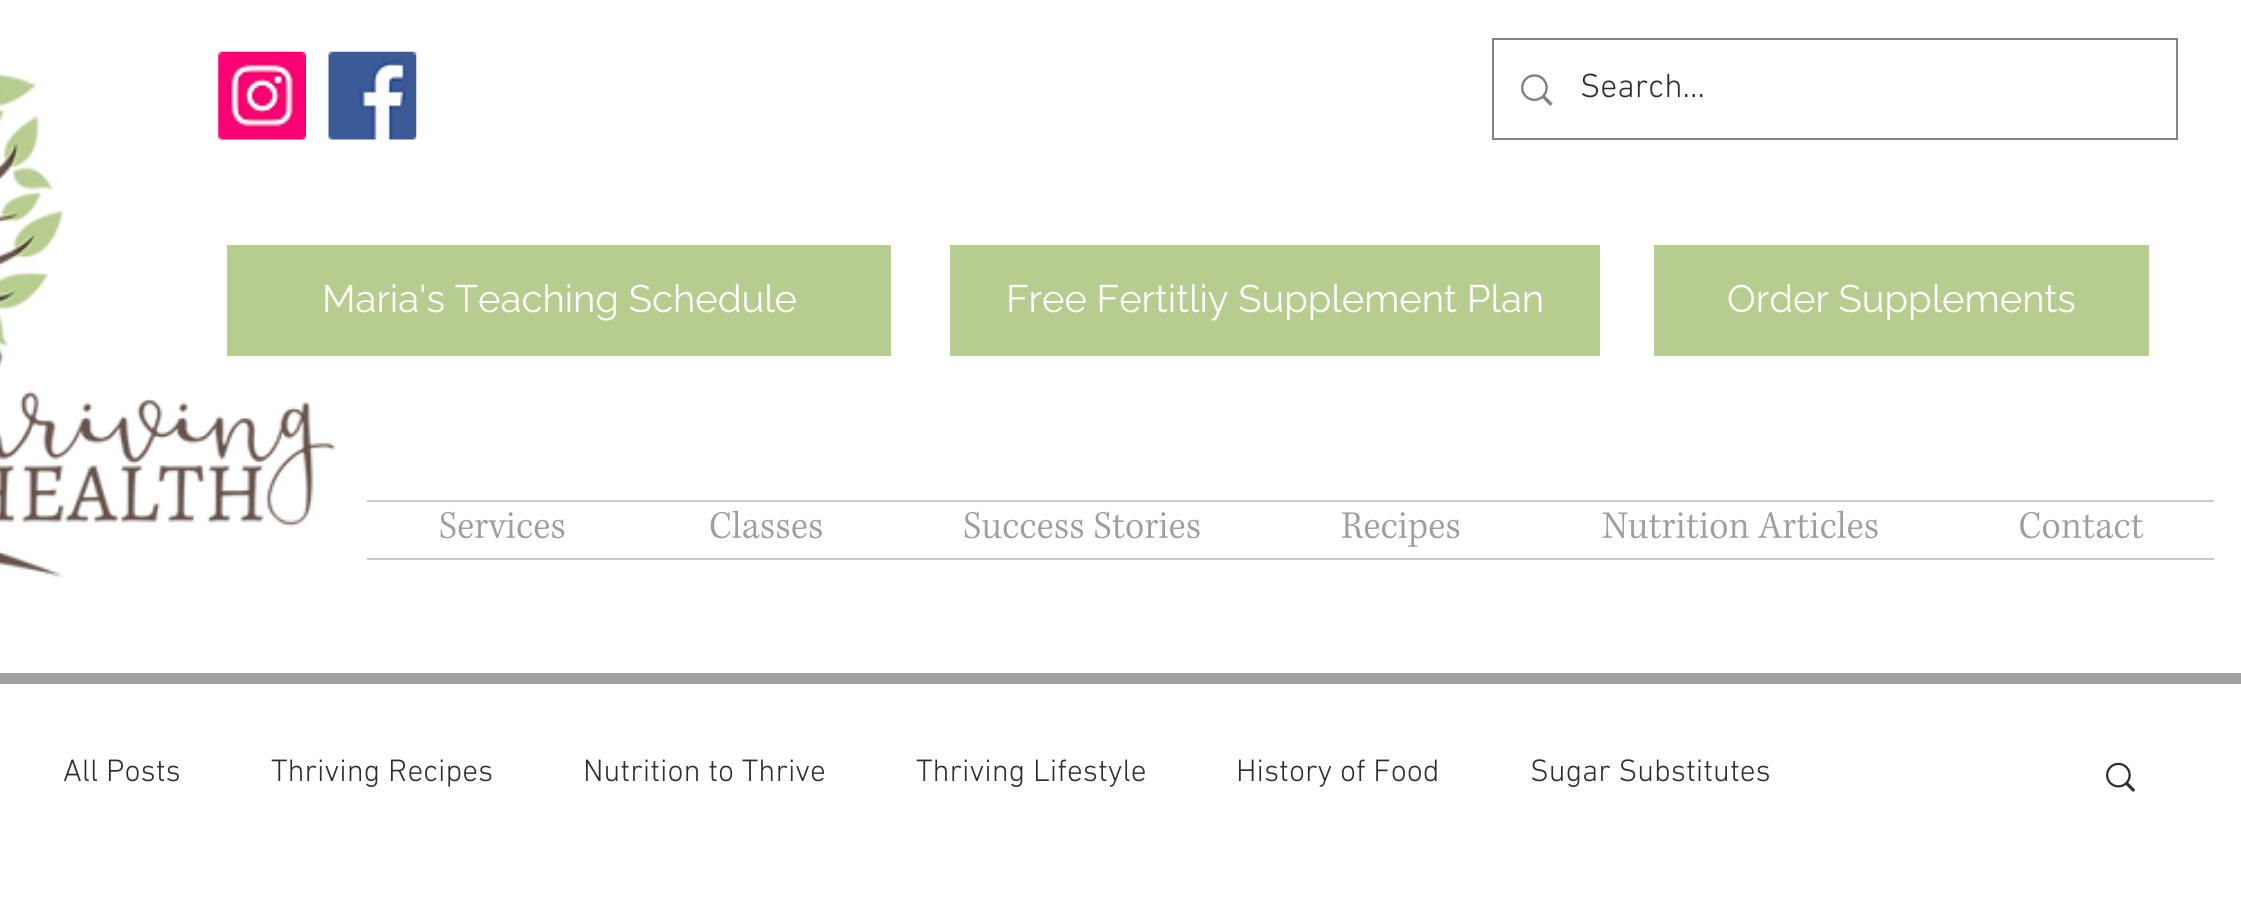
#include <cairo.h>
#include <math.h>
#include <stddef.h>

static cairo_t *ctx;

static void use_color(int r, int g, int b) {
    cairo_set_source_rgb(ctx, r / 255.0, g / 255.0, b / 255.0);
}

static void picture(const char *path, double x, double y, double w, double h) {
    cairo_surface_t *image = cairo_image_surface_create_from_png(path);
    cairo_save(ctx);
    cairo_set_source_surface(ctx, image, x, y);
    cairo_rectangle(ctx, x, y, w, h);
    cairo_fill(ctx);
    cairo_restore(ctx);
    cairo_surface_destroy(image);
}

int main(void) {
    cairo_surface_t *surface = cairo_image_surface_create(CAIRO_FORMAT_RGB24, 2241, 900);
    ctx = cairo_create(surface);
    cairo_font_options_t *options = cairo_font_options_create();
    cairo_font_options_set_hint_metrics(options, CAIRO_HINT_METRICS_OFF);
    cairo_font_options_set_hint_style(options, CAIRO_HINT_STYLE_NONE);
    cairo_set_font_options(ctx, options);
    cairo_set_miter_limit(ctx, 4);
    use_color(255, 255, 255);
    cairo_paint(ctx);
    picture("img3.png", 0, 73, 336, 505);
    picture("img1.png", 218, 51, 88, 89);
    picture("img2.png", 328, 51, 89, 89);
    cairo_rectangle(ctx, 1493, 39, 684, 100);
    use_color(130, 130, 130);
    cairo_stroke(ctx);
    picture("img4.png", 1521, 74, 32, 32);
    cairo_select_font_face(ctx, "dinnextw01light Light", CAIRO_FONT_SLANT_NORMAL, CAIRO_FONT_WEIGHT_NORMAL);
    cairo_set_font_size(ctx, 34);
    use_color(47, 46, 46);
    cairo_move_to(ctx, 1580, 97);
    cairo_show_text(ctx, "Search...");
    use_color(182, 205, 143);
    cairo_rectangle(ctx, 227, 245, 664, 111);
    cairo_fill(ctx);
    cairo_select_font_face(ctx, "Raleway", CAIRO_FONT_SLANT_NORMAL, CAIRO_FONT_WEIGHT_NORMAL);
    cairo_set_font_size(ctx, 38.25);
    use_color(255, 255, 254);
    cairo_move_to(ctx, 322, 312);
    cairo_show_text(ctx, "Maria's Teaching Schedule");
    use_color(182, 205, 143);
    cairo_rectangle(ctx, 950, 245, 650, 111);
    cairo_fill(ctx);
    use_color(255, 255, 254);
    cairo_move_to(ctx, 1006, 312);
    cairo_show_text(ctx, "Free Fertitliy Supplement Plan");
    use_color(182, 205, 143);
    cairo_rectangle(ctx, 1654, 245, 495, 111);
    cairo_fill(ctx);
    use_color(255, 255, 254);
    cairo_move_to(ctx, 1727, 312);
    cairo_show_text(ctx, "Order Supplements");
    use_color(202, 202, 202);
    cairo_rectangle(ctx, 367, 500, 1847, 2);
    cairo_fill(ctx);
    cairo_rectangle(ctx, 367, 558, 1847, 2);
    cairo_fill(ctx);
    picture("img5.png", 440, 511, 125, 28);
    picture("img6.png", 710, 510, 112, 29);
    picture("img7.png", 964, 511, 236, 28);
    picture("img8.png", 1342, 512, 118, 35);
    picture("img9.png", 1602, 510, 276, 29);
    picture("img10.png", 2020, 511, 124, 28);
    use_color(160, 160, 159);
    cairo_rectangle(ctx, 0, 673, 2241, 11);
    cairo_fill(ctx);
    cairo_select_font_face(ctx, "dinnextw01light Light", CAIRO_FONT_SLANT_NORMAL, CAIRO_FONT_WEIGHT_NORMAL);
    cairo_set_font_size(ctx, 31.5);
    use_color(47, 46, 46);
    cairo_move_to(ctx, 63, 781);
    cairo_show_text(ctx, "All Posts");
    cairo_move_to(ctx, 271, 781);
    cairo_show_text(ctx, "Thriving Recipes");
    cairo_move_to(ctx, 583, 781);
    cairo_show_text(ctx, "Nutrition to Thrive");
    cairo_move_to(ctx, 916, 781);
    cairo_show_text(ctx, "Thriving Lifestyle");
    cairo_move_to(ctx, 1236, 781);
    cairo_show_text(ctx, "History of Food");
    cairo_move_to(ctx, 1530, 781);
    cairo_show_text(ctx, "Sugar Substitutes");
    picture("img11.png", 2106, 762, 29, 30);
    cairo_surface_write_to_png(surface, "result.png");
    cairo_font_options_destroy(options);
    cairo_destroy(ctx);
    cairo_surface_destroy(surface);
    return 0;
}
